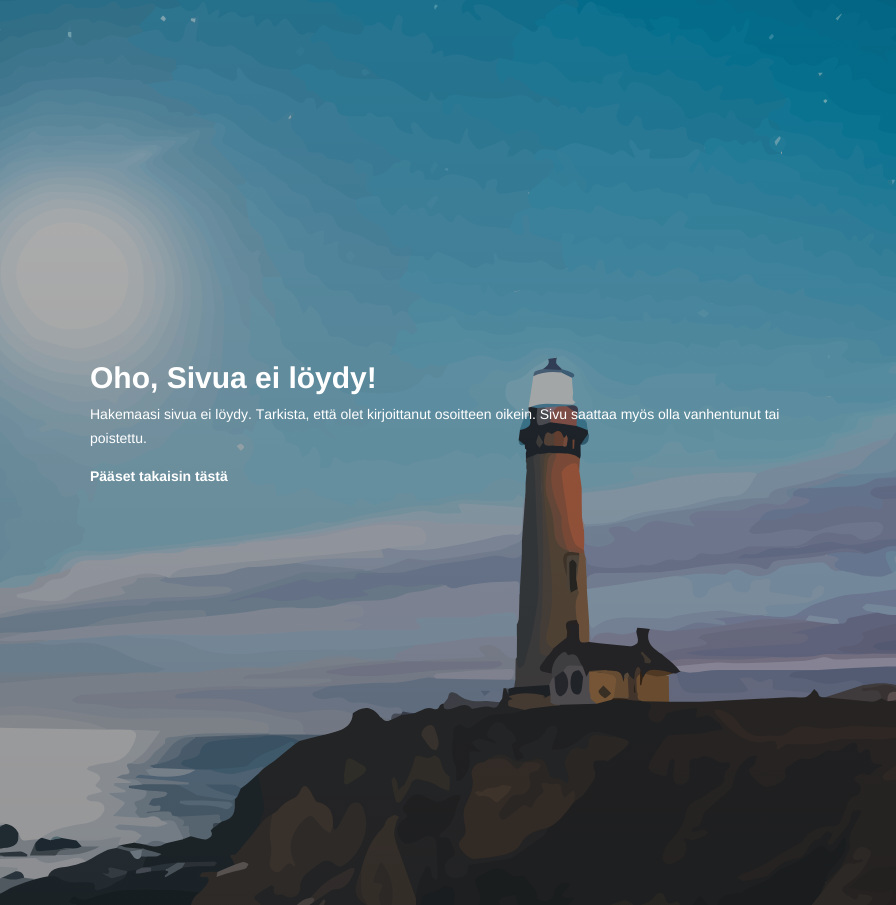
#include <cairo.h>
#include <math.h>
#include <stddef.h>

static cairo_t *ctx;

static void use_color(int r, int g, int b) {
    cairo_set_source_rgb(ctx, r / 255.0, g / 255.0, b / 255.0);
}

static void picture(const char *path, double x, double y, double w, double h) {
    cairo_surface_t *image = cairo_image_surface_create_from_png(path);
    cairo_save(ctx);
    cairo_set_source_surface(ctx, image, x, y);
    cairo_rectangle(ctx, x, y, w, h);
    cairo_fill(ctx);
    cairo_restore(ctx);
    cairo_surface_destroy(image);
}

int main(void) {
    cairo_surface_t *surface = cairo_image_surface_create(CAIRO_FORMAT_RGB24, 896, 905);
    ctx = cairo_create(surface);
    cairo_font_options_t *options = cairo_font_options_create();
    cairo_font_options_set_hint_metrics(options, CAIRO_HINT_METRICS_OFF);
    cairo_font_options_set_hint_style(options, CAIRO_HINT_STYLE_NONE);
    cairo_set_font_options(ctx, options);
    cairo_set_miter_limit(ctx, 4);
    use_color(255, 255, 255);
    cairo_paint(ctx);
    picture("img1.png", 0, 0, 896, 905);
    cairo_select_font_face(ctx, "Liberation Sans", CAIRO_FONT_SLANT_NORMAL, CAIRO_FONT_WEIGHT_BOLD);
    cairo_set_font_size(ctx, 30);
    use_color(255, 255, 255);
    cairo_move_to(ctx, 90, 388);
    cairo_show_text(ctx, "Oho, Sivua ei löydy!");
    cairo_select_font_face(ctx, "Liberation Sans", CAIRO_FONT_SLANT_NORMAL, CAIRO_FONT_WEIGHT_NORMAL);
    cairo_set_font_size(ctx, 14);
    cairo_move_to(ctx, 90, 419);
    cairo_show_text(ctx, "Hakemaasi sivua ei löydy. Tarkista, että olet kirjoittanut osoitteen oikein. Sivu saattaa myös olla vanhentunut tai");
    cairo_move_to(ctx, 90, 443);
    cairo_show_text(ctx, "poistettu.");
    cairo_select_font_face(ctx, "Liberation Sans", CAIRO_FONT_SLANT_NORMAL, CAIRO_FONT_WEIGHT_BOLD);
    cairo_move_to(ctx, 90, 481);
    cairo_show_text(ctx, "Pääset takaisin tästä");
    cairo_surface_write_to_png(surface, "result.png");
    cairo_font_options_destroy(options);
    cairo_destroy(ctx);
    cairo_surface_destroy(surface);
    return 0;
}
